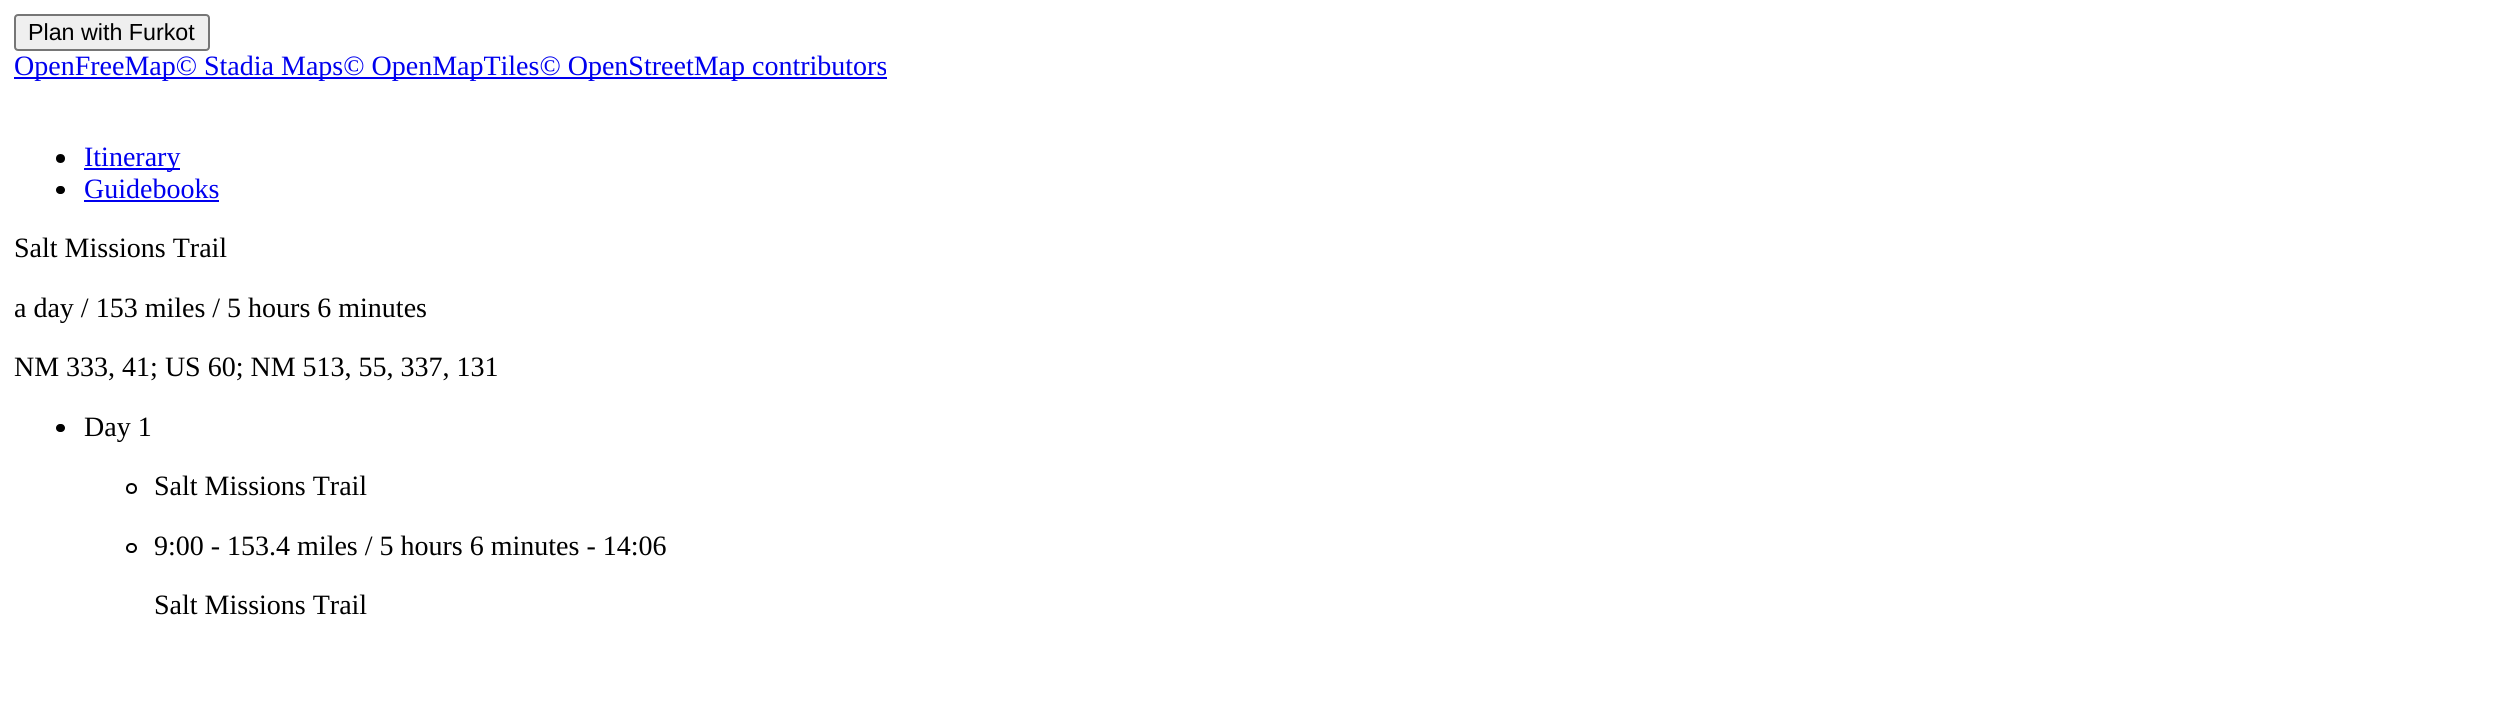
#include <cairo.h>
#include <math.h>
#include <stddef.h>

static cairo_t *ctx;

static void use_color(int r, int g, int b) {
    cairo_set_source_rgb(ctx, r / 255.0, g / 255.0, b / 255.0);
}

static void round_rect(double x, double y, double w, double h, double r) {
    cairo_new_sub_path(ctx);
    cairo_arc(ctx, x + w - r, y + h - r, r, 0, M_PI / 2);
    cairo_arc(ctx, x + r, y + h - r, r, M_PI / 2, M_PI);
    cairo_arc(ctx, x + r, y + r, r, M_PI, 1.5 * M_PI);
    cairo_arc(ctx, x + w - r, y + r, r, 1.5 * M_PI, 2 * M_PI);
    cairo_close_path(ctx);
}

int main(void) {
    cairo_surface_t *surface = cairo_image_surface_create(CAIRO_FORMAT_RGB24, 2519, 717);
    ctx = cairo_create(surface);
    cairo_font_options_t *options = cairo_font_options_create();
    cairo_font_options_set_hint_metrics(options, CAIRO_HINT_METRICS_OFF);
    cairo_font_options_set_hint_style(options, CAIRO_HINT_STYLE_NONE);
    cairo_set_font_options(ctx, options);
    cairo_set_miter_limit(ctx, 4);
    use_color(255, 255, 255);
    cairo_paint(ctx);
    use_color(239, 239, 239);
    round_rect(15, 15, 194, 35, 3);
    cairo_fill_preserve(ctx);
    use_color(118, 118, 118);
    cairo_stroke(ctx);
    cairo_select_font_face(ctx, "Liberation Sans", CAIRO_FONT_SLANT_NORMAL, CAIRO_FONT_WEIGHT_NORMAL);
    cairo_set_font_size(ctx, 23.25);
    use_color(0, 0, 0);
    cairo_move_to(ctx, 28, 40);
    cairo_show_text(ctx, "Plan with Furkot");
    use_color(0, 0, 238);
    cairo_rectangle(ctx, 14, 77, 873, 2);
    cairo_fill(ctx);
    cairo_select_font_face(ctx, "Liberation Serif", CAIRO_FONT_SLANT_NORMAL, CAIRO_FONT_WEIGHT_NORMAL);
    cairo_set_font_size(ctx, 28);
    cairo_move_to(ctx, 14, 75);
    cairo_show_text(ctx, "OpenFreeMap© Stadia Maps© OpenMapTiles© OpenStreetMap contributors");
    use_color(0, 0, 0);
    cairo_new_path(ctx);
    cairo_arc(ctx, 60.5, 158.5, 4.5, 0, 2 * M_PI);
    cairo_fill(ctx);
    use_color(0, 0, 238);
    cairo_rectangle(ctx, 84, 168, 96, 2);
    cairo_fill(ctx);
    cairo_move_to(ctx, 84, 166);
    cairo_show_text(ctx, "Itinerary");
    use_color(0, 0, 0);
    round_rect(56, 186, 9, 8, 4);
    cairo_fill(ctx);
    use_color(0, 0, 238);
    cairo_move_to(ctx, 84, 198);
    cairo_show_text(ctx, "Guidebooks");
    cairo_rectangle(ctx, 84, 200, 135, 2);
    cairo_fill(ctx);
    use_color(0, 0, 0);
    cairo_move_to(ctx, 14, 257);
    cairo_show_text(ctx, "Salt Missions Trail");
    cairo_move_to(ctx, 14, 317);
    cairo_show_text(ctx, "a day / 153 miles / 5 hours 6 minutes");
    cairo_move_to(ctx, 14, 376);
    cairo_show_text(ctx, "NM 333, 41; US 60; NM 513, 55, 337, 131");
    round_rect(56, 424, 9, 8, 4);
    cairo_fill(ctx);
    cairo_move_to(ctx, 84, 436);
    cairo_show_text(ctx, "Day 1");
    cairo_new_path(ctx);
    cairo_arc(ctx, 131.5, 488.5, 4.5, 0, 2 * M_PI);
    cairo_stroke(ctx);
    cairo_move_to(ctx, 154, 495);
    cairo_show_text(ctx, "Salt Missions Trail");
    round_rect(127, 544, 9, 8, 4);
    cairo_stroke(ctx);
    cairo_move_to(ctx, 154, 555);
    cairo_show_text(ctx, "9:00 - 153.4 miles / 5 hours 6 minutes - 14:06");
    cairo_move_to(ctx, 154, 614);
    cairo_show_text(ctx, "Salt Missions Trail");
    cairo_surface_write_to_png(surface, "result.png");
    cairo_font_options_destroy(options);
    cairo_destroy(ctx);
    cairo_surface_destroy(surface);
    return 0;
}
